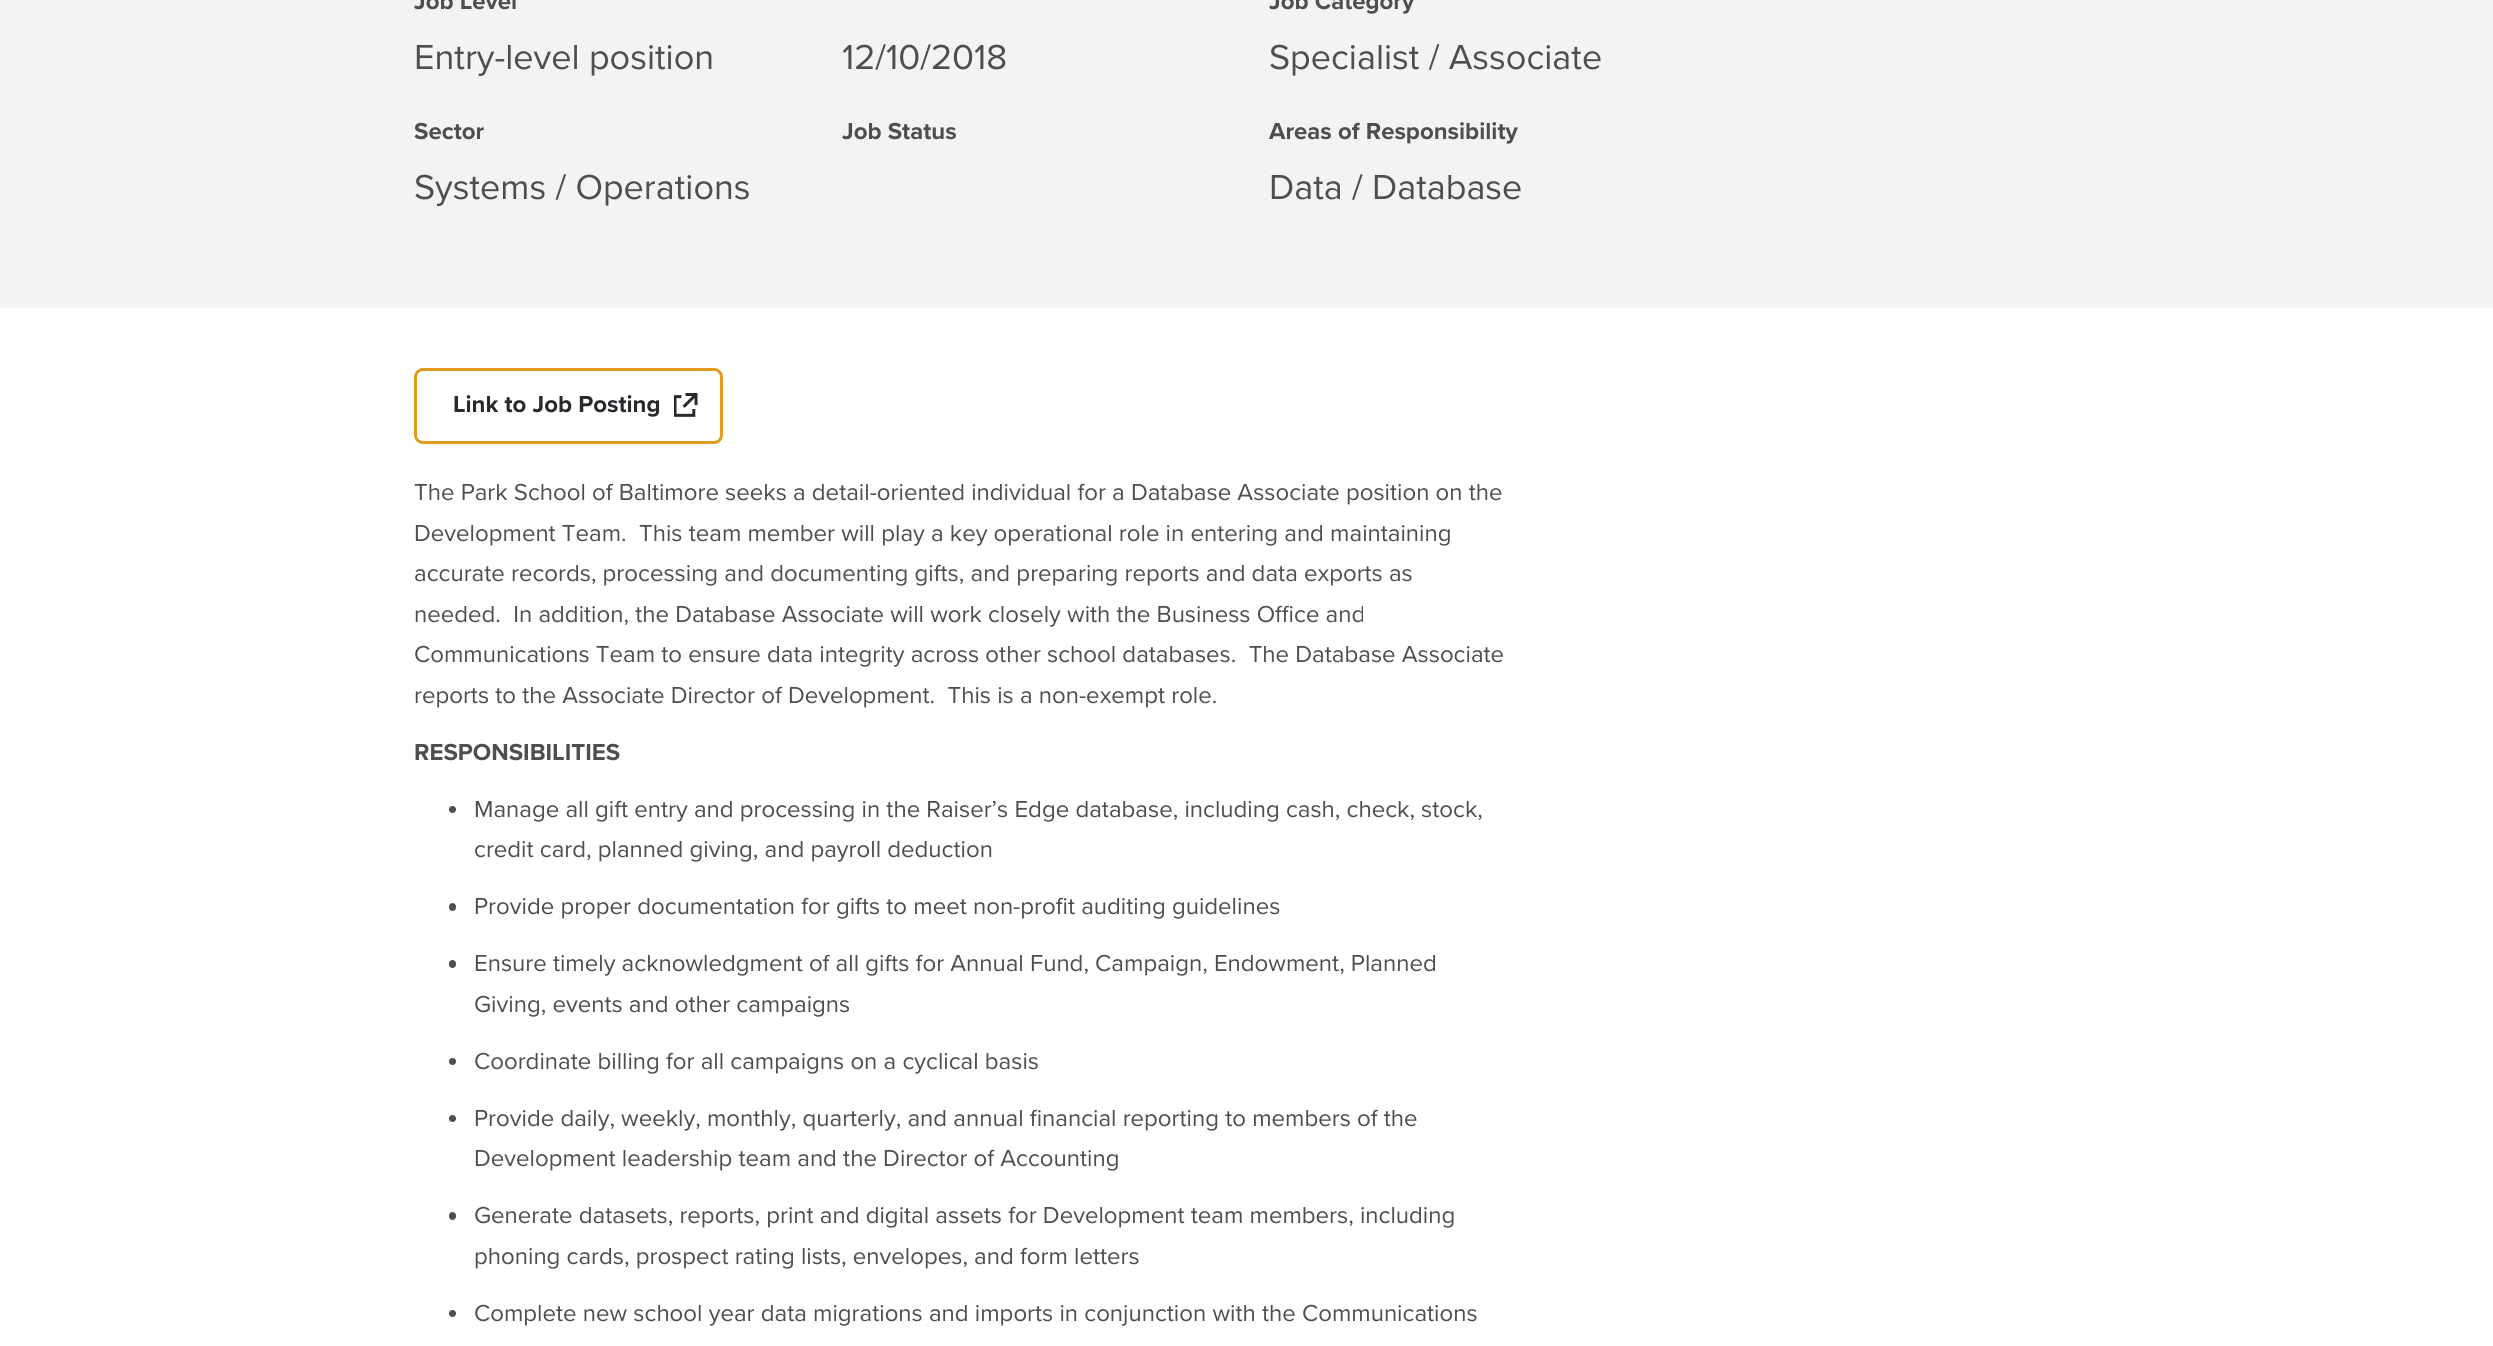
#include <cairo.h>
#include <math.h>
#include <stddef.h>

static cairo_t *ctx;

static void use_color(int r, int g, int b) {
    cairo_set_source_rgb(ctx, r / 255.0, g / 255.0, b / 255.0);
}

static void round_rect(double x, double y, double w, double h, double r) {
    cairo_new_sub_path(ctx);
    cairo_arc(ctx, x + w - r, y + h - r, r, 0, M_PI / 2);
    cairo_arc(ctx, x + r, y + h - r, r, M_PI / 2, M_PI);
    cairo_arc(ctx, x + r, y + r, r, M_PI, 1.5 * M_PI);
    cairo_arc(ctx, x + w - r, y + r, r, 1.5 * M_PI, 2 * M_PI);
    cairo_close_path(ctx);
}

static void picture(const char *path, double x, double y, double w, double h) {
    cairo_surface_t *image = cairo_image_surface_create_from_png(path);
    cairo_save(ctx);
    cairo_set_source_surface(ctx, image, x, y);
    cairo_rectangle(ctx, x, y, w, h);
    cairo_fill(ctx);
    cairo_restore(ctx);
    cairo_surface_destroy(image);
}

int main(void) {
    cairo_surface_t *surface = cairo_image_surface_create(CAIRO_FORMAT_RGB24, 2493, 1346);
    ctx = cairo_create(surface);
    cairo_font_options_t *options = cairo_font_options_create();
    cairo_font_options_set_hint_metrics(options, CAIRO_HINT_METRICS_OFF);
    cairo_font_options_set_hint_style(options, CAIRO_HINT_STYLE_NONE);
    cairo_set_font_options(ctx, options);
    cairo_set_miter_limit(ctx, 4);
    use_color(243, 243, 242);
    cairo_paint(ctx);
    cairo_select_font_face(ctx, "Proxima Nova", CAIRO_FONT_SLANT_NORMAL, CAIRO_FONT_WEIGHT_BOLD);
    cairo_set_font_size(ctx, 24);
    use_color(78, 78, 78);
    cairo_move_to(ctx, 414, 9);
    cairo_show_text(ctx, "Job Level");
    cairo_select_font_face(ctx, "Proxima Nova", CAIRO_FONT_SLANT_NORMAL, CAIRO_FONT_WEIGHT_NORMAL);
    cairo_set_font_size(ctx, 36);
    cairo_move_to(ctx, 414, 69);
    cairo_show_text(ctx, "Entry-level position");
    cairo_move_to(ctx, 842, 69);
    cairo_show_text(ctx, "12/10/2018");
    cairo_select_font_face(ctx, "Proxima Nova", CAIRO_FONT_SLANT_NORMAL, CAIRO_FONT_WEIGHT_BOLD);
    cairo_set_font_size(ctx, 24);
    cairo_move_to(ctx, 1269, 9);
    cairo_show_text(ctx, "Job Category");
    cairo_select_font_face(ctx, "Proxima Nova", CAIRO_FONT_SLANT_NORMAL, CAIRO_FONT_WEIGHT_NORMAL);
    cairo_set_font_size(ctx, 36);
    cairo_move_to(ctx, 1269, 69);
    cairo_show_text(ctx, "Specialist / Associate");
    cairo_select_font_face(ctx, "Proxima Nova", CAIRO_FONT_SLANT_NORMAL, CAIRO_FONT_WEIGHT_BOLD);
    cairo_set_font_size(ctx, 24);
    cairo_move_to(ctx, 414, 139);
    cairo_show_text(ctx, "Sector");
    cairo_select_font_face(ctx, "Proxima Nova", CAIRO_FONT_SLANT_NORMAL, CAIRO_FONT_WEIGHT_NORMAL);
    cairo_set_font_size(ctx, 36);
    cairo_move_to(ctx, 414, 199);
    cairo_show_text(ctx, "Systems / Operations");
    cairo_select_font_face(ctx, "Proxima Nova", CAIRO_FONT_SLANT_NORMAL, CAIRO_FONT_WEIGHT_BOLD);
    cairo_set_font_size(ctx, 24);
    cairo_move_to(ctx, 842, 139);
    cairo_show_text(ctx, "Job Status");
    cairo_move_to(ctx, 1269, 139);
    cairo_show_text(ctx, "Areas of Responsibility");
    cairo_select_font_face(ctx, "Proxima Nova", CAIRO_FONT_SLANT_NORMAL, CAIRO_FONT_WEIGHT_NORMAL);
    cairo_set_font_size(ctx, 36);
    cairo_move_to(ctx, 1269, 199);
    cairo_show_text(ctx, "Data / Database");
    use_color(255, 255, 255);
    cairo_rectangle(ctx, 0, 308, 2493, 1038);
    cairo_fill(ctx);
    picture("img1.png", 674, 393, 24, 24);
    round_rect(415.5, 369.5, 306, 73, 7.5);
    use_color(224, 155, 32);
    cairo_set_line_width(ctx, 3);
    cairo_stroke(ctx);
    cairo_select_font_face(ctx, "Proxima Nova", CAIRO_FONT_SLANT_NORMAL, CAIRO_FONT_WEIGHT_BOLD);
    cairo_set_font_size(ctx, 24);
    use_color(40, 41, 45);
    cairo_move_to(ctx, 453, 412);
    cairo_show_text(ctx, "Link to Job Posting");
    cairo_select_font_face(ctx, "Proxima Nova", CAIRO_FONT_SLANT_NORMAL, CAIRO_FONT_WEIGHT_NORMAL);
    use_color(78, 78, 78);
    cairo_move_to(ctx, 414, 500);
    cairo_show_text(ctx, "The Park School of Baltimore seeks a detail-oriented individual for a Database Associate position on the");
    cairo_move_to(ctx, 414, 541);
    cairo_show_text(ctx, "Development Team.  This team member will play a key operational role in entering and maintaining");
    cairo_move_to(ctx, 414, 581);
    cairo_show_text(ctx, "accurate records, processing and documenting gifts, and preparing reports and data exports as");
    cairo_move_to(ctx, 414, 622);
    cairo_show_text(ctx, "needed.  In addition, the Database Associate will work closely with the Business Office and");
    cairo_move_to(ctx, 414, 662);
    cairo_show_text(ctx, "Communications Team to ensure data integrity across other school databases.  The Database Associate");
    cairo_move_to(ctx, 414, 703);
    cairo_show_text(ctx, "reports to the Associate Director of Development.  This is a non-exempt role.");
    cairo_select_font_face(ctx, "Proxima Nova", CAIRO_FONT_SLANT_NORMAL, CAIRO_FONT_WEIGHT_BOLD);
    cairo_move_to(ctx, 414, 760);
    cairo_show_text(ctx, "RESPONSIBILITIES");
    cairo_new_path(ctx);
    cairo_arc(ctx, 452.5, 809.5, 3.5, 0, 2 * M_PI);
    cairo_fill(ctx);
    cairo_select_font_face(ctx, "Proxima Nova", CAIRO_FONT_SLANT_NORMAL, CAIRO_FONT_WEIGHT_NORMAL);
    cairo_move_to(ctx, 474, 817);
    cairo_show_text(ctx, "Manage all gift entry and processing in the Raiser’s Edge database, including cash, check, stock,");
    cairo_move_to(ctx, 474, 857);
    cairo_show_text(ctx, "credit card, planned giving, and payroll deduction");
    round_rect(449, 903, 7, 8, 3.5);
    cairo_fill(ctx);
    cairo_move_to(ctx, 474, 914);
    cairo_show_text(ctx, "Provide proper documentation for gifts to meet non-profit auditing guidelines");
    round_rect(449, 960, 7, 8, 3.5);
    cairo_fill(ctx);
    cairo_move_to(ctx, 474, 971);
    cairo_show_text(ctx, "Ensure timely acknowledgment of all gifts for Annual Fund, Campaign, Endowment, Planned");
    cairo_move_to(ctx, 474, 1012);
    cairo_show_text(ctx, "Giving, events and other campaigns");
    cairo_new_path(ctx);
    cairo_arc(ctx, 452.5, 1061.5, 3.5, 0, 2 * M_PI);
    cairo_fill(ctx);
    cairo_move_to(ctx, 474, 1069);
    cairo_show_text(ctx, "Coordinate billing for all campaigns on a cyclical basis");
    cairo_new_path(ctx);
    cairo_arc(ctx, 452.5, 1118.5, 3.5, 0, 2 * M_PI);
    cairo_fill(ctx);
    cairo_move_to(ctx, 474, 1126);
    cairo_show_text(ctx, "Provide daily, weekly, monthly, quarterly, and annual financial reporting to members of the");
    cairo_move_to(ctx, 474, 1166);
    cairo_show_text(ctx, "Development leadership team and the Director of Accounting");
    round_rect(449, 1212, 7, 8, 3.5);
    cairo_fill(ctx);
    cairo_move_to(ctx, 474, 1223);
    cairo_show_text(ctx, "Generate datasets, reports, print and digital assets for Development team members, including");
    cairo_move_to(ctx, 474, 1264);
    cairo_show_text(ctx, "phoning cards, prospect rating lists, envelopes, and form letters");
    cairo_new_path(ctx);
    cairo_arc(ctx, 452.5, 1313.5, 3.5, 0, 2 * M_PI);
    cairo_fill(ctx);
    cairo_move_to(ctx, 474, 1321);
    cairo_show_text(ctx, "Complete new school year data migrations and imports in conjunction with the Communications");
    cairo_surface_write_to_png(surface, "result.png");
    cairo_font_options_destroy(options);
    cairo_destroy(ctx);
    cairo_surface_destroy(surface);
    return 0;
}
